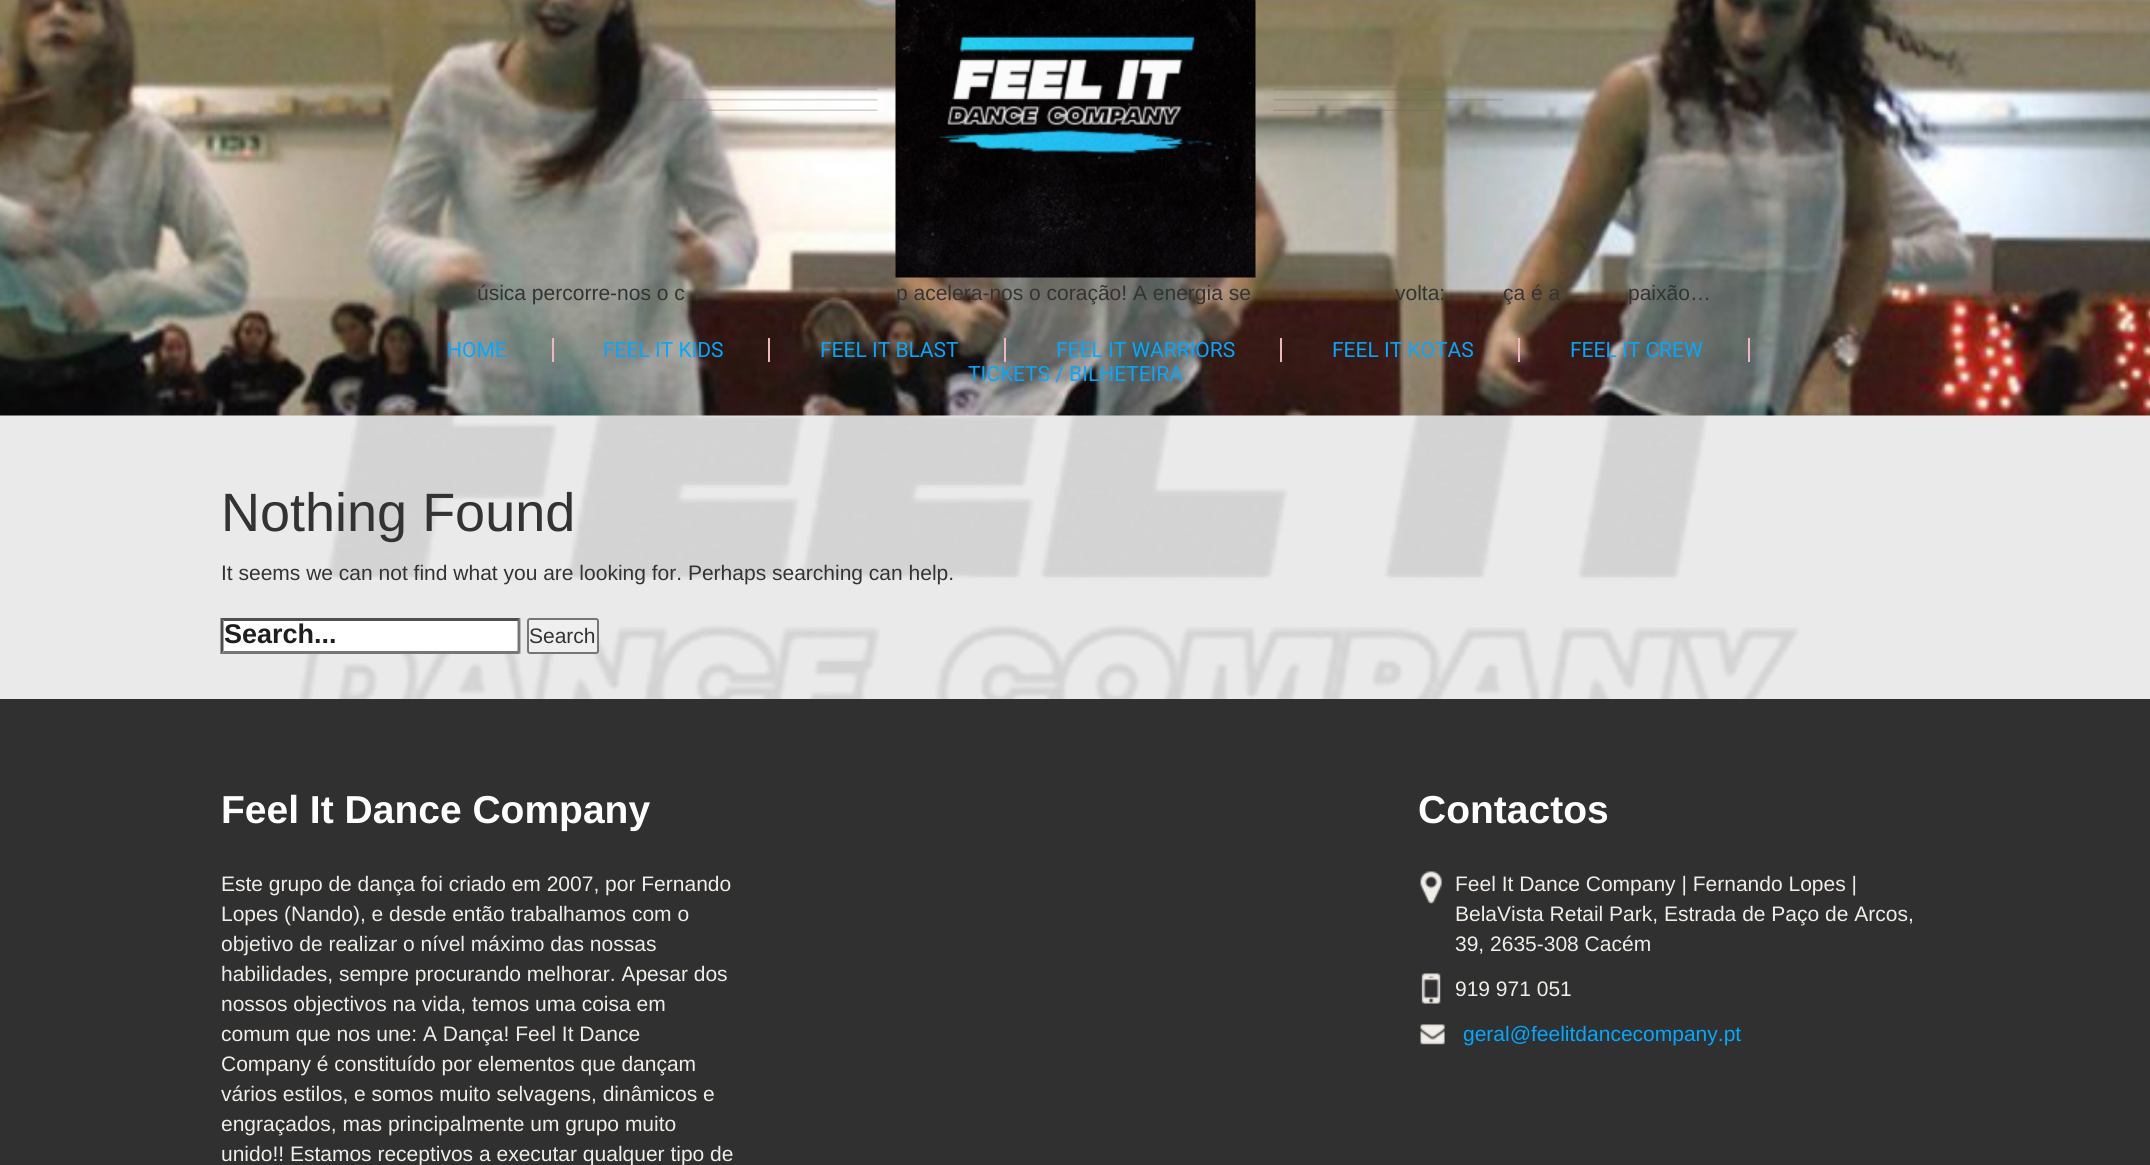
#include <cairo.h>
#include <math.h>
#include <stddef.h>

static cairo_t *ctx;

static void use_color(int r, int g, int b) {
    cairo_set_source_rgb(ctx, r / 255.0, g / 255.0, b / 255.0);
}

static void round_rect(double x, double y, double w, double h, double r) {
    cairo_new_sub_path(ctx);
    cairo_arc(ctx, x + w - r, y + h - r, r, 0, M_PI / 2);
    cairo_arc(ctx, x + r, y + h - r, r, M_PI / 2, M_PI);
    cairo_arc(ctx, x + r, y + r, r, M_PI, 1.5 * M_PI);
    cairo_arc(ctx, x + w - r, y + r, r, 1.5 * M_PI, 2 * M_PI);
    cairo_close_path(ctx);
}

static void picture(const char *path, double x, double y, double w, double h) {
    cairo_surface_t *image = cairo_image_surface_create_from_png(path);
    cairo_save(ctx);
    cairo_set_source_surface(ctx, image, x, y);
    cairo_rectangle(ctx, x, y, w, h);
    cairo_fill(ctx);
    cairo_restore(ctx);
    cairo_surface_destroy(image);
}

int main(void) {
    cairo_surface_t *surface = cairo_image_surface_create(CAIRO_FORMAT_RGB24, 2150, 1165);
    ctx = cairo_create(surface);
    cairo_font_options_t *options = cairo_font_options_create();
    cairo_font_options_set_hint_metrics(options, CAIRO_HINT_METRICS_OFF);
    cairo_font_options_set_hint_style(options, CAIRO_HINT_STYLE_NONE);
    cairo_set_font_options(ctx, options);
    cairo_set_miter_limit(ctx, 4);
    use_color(234, 234, 234);
    cairo_paint(ctx);
    picture("img1.png", 299, 415, 1500, 284);
    picture("img2.png", 0, 0, 2150, 416);
    picture("img3.png", 649, 88, 229, 23);
    picture("img4.png", 1273, 88, 230, 23);
    picture("img5.png", 895, 0, 361, 278);
    cairo_select_font_face(ctx, "Liberation Sans", CAIRO_FONT_SLANT_NORMAL, CAIRO_FONT_WEIGHT_NORMAL);
    cairo_set_font_size(ctx, 21);
    use_color(51, 51, 51);
    cairo_move_to(ctx, 477, 300);
    cairo_show_text(ctx, "úsica percorre-nos o c");
    cairo_move_to(ctx, 896, 300);
    cairo_show_text(ctx, "p acelera-nos o coração! A energia se");
    cairo_move_to(ctx, 1395, 300);
    cairo_show_text(ctx, "volta:");
    cairo_move_to(ctx, 1503, 300);
    cairo_show_text(ctx, "ça é a");
    cairo_move_to(ctx, 1628, 300);
    cairo_show_text(ctx, "paixão…");
    use_color(237, 183, 189);
    cairo_rectangle(ctx, 552, 338, 2, 24);
    cairo_fill(ctx);
    cairo_select_font_face(ctx, "Roboto", CAIRO_FONT_SLANT_NORMAL, CAIRO_FONT_WEIGHT_NORMAL);
    use_color(0, 169, 255);
    cairo_move_to(ctx, 447, 357);
    cairo_show_text(ctx, "HOME");
    use_color(237, 183, 189);
    cairo_rectangle(ctx, 768, 338, 2, 24);
    cairo_fill(ctx);
    use_color(0, 169, 255);
    cairo_move_to(ctx, 603, 357);
    cairo_show_text(ctx, "FEEL IT KIDS");
    use_color(237, 183, 189);
    cairo_rectangle(ctx, 1004, 338, 2, 24);
    cairo_fill(ctx);
    use_color(0, 169, 255);
    cairo_move_to(ctx, 820, 357);
    cairo_show_text(ctx, "FEEL IT BLAST");
    use_color(237, 183, 189);
    cairo_rectangle(ctx, 1280, 338, 2, 24);
    cairo_fill(ctx);
    use_color(0, 169, 255);
    cairo_move_to(ctx, 1056, 357);
    cairo_show_text(ctx, "FEEL IT WARRIORS");
    use_color(237, 183, 189);
    cairo_rectangle(ctx, 1518, 338, 2, 24);
    cairo_fill(ctx);
    use_color(0, 169, 255);
    cairo_move_to(ctx, 1332, 357);
    cairo_show_text(ctx, "FEEL IT KOTAS");
    use_color(237, 183, 189);
    cairo_rectangle(ctx, 1748, 338, 2, 24);
    cairo_fill(ctx);
    use_color(0, 169, 255);
    cairo_move_to(ctx, 1570, 357);
    cairo_show_text(ctx, "FEEL IT CREW");
    cairo_move_to(ctx, 968, 381);
    cairo_show_text(ctx, "TICKETS / BILHETEIRA");
    cairo_select_font_face(ctx, "Liberation Sans", CAIRO_FONT_SLANT_NORMAL, CAIRO_FONT_WEIGHT_NORMAL);
    cairo_set_font_size(ctx, 54);
    use_color(51, 51, 51);
    cairo_move_to(ctx, 221, 531);
    cairo_show_text(ctx, "Nothing Found");
    cairo_set_font_size(ctx, 21);
    cairo_move_to(ctx, 221, 580);
    cairo_show_text(ctx, "It seems we can not find what you are looking for. Perhaps searching can help.");
    use_color(255, 255, 255);
    cairo_rectangle(ctx, 221, 618, 300, 36);
    cairo_fill(ctx);
    use_color(79, 79, 79);
    cairo_new_path(ctx);
    cairo_move_to(ctx, 220, 618);
    cairo_line_to(ctx, 520, 618);
    cairo_line_to(ctx, 518, 621);
    cairo_line_to(ctx, 224, 621);
    cairo_close_path(ctx);
    cairo_fill(ctx);
    use_color(118, 118, 118);
    cairo_new_path(ctx);
    cairo_move_to(ctx, 520.5, 618);
    cairo_line_to(ctx, 520.5, 654);
    cairo_line_to(ctx, 517.5, 651);
    cairo_line_to(ctx, 517.5, 621);
    cairo_close_path(ctx);
    cairo_fill(ctx);
    cairo_new_path(ctx);
    cairo_move_to(ctx, 520, 654);
    cairo_line_to(ctx, 220, 654);
    cairo_line_to(ctx, 224, 651);
    cairo_line_to(ctx, 518, 651);
    cairo_close_path(ctx);
    cairo_fill(ctx);
    use_color(79, 79, 79);
    cairo_new_path(ctx);
    cairo_move_to(ctx, 220.5, 654);
    cairo_line_to(ctx, 220.5, 618);
    cairo_line_to(ctx, 223.5, 621);
    cairo_line_to(ctx, 223.5, 651);
    cairo_close_path(ctx);
    cairo_fill(ctx);
    cairo_select_font_face(ctx, "Liberation Sans", CAIRO_FONT_SLANT_NORMAL, CAIRO_FONT_WEIGHT_BOLD);
    cairo_set_font_size(ctx, 27);
    use_color(30, 30, 30);
    cairo_move_to(ctx, 224, 643);
    cairo_show_text(ctx, "Search...");
    use_color(239, 239, 239);
    round_rect(528, 619, 70, 34, 2);
    cairo_fill_preserve(ctx);
    use_color(118, 118, 118);
    cairo_stroke(ctx);
    cairo_select_font_face(ctx, "Liberation Sans", CAIRO_FONT_SLANT_NORMAL, CAIRO_FONT_WEIGHT_NORMAL);
    cairo_set_font_size(ctx, 21);
    use_color(51, 51, 51);
    cairo_move_to(ctx, 529, 643);
    cairo_show_text(ctx, "Search");
    use_color(48, 48, 48);
    cairo_rectangle(ctx, 0, 699, 2150, 466);
    cairo_fill(ctx);
    cairo_select_font_face(ctx, "Liberation Sans", CAIRO_FONT_SLANT_NORMAL, CAIRO_FONT_WEIGHT_BOLD);
    cairo_set_font_size(ctx, 39);
    use_color(255, 255, 255);
    cairo_move_to(ctx, 221, 823);
    cairo_show_text(ctx, "Feel It Dance Company");
    cairo_select_font_face(ctx, "Liberation Sans", CAIRO_FONT_SLANT_NORMAL, CAIRO_FONT_WEIGHT_NORMAL);
    cairo_set_font_size(ctx, 21);
    use_color(241, 238, 233);
    cairo_move_to(ctx, 221, 891);
    cairo_show_text(ctx, "Este grupo de dança foi criado em 2007, por Fernando");
    cairo_move_to(ctx, 221, 921);
    cairo_show_text(ctx, "Lopes (Nando), e desde então trabalhamos com o");
    cairo_move_to(ctx, 221, 951);
    cairo_show_text(ctx, "objetivo de realizar o nível máximo das nossas");
    cairo_move_to(ctx, 221, 981);
    cairo_show_text(ctx, "habilidades, sempre procurando melhorar. Apesar dos");
    cairo_move_to(ctx, 221, 1011);
    cairo_show_text(ctx, "nossos objectivos na vida, temos uma coisa em");
    cairo_move_to(ctx, 221, 1041);
    cairo_show_text(ctx, "comum que nos une: A Dança! Feel It Dance");
    cairo_move_to(ctx, 221, 1071);
    cairo_show_text(ctx, "Company é constituído por elementos que dançam");
    cairo_move_to(ctx, 221, 1101);
    cairo_show_text(ctx, "vários estilos, e somos muito selvagens, dinâmicos e");
    cairo_move_to(ctx, 221, 1131);
    cairo_show_text(ctx, "engraçados, mas principalmente um grupo muito");
    cairo_move_to(ctx, 221, 1161);
    cairo_show_text(ctx, "unido!! Estamos receptivos a executar qualquer tipo de");
    cairo_select_font_face(ctx, "Liberation Sans", CAIRO_FONT_SLANT_NORMAL, CAIRO_FONT_WEIGHT_BOLD);
    cairo_set_font_size(ctx, 39);
    use_color(255, 255, 255);
    cairo_move_to(ctx, 1418, 823);
    cairo_show_text(ctx, "Contactos");
    picture("img6.png", 1420, 871, 22, 33);
    cairo_select_font_face(ctx, "Liberation Sans", CAIRO_FONT_SLANT_NORMAL, CAIRO_FONT_WEIGHT_NORMAL);
    cairo_set_font_size(ctx, 21);
    use_color(241, 238, 233);
    cairo_move_to(ctx, 1455, 891);
    cairo_show_text(ctx, "Feel It Dance Company | Fernando Lopes |");
    cairo_move_to(ctx, 1455, 921);
    cairo_show_text(ctx, "BelaVista Retail Park, Estrada de Paço de Arcos,");
    cairo_move_to(ctx, 1455, 951);
    cairo_show_text(ctx, "39, 2635-308 Cacém");
    picture("img7.png", 1421, 973, 20, 31);
    cairo_move_to(ctx, 1455, 996);
    cairo_show_text(ctx, "919 971 051");
    picture("img8.png", 1420, 1024, 25, 21);
    use_color(0, 169, 255);
    cairo_move_to(ctx, 1463, 1041);
    cairo_show_text(ctx, "geral@feelitdancecompany.pt");
    cairo_surface_write_to_png(surface, "result.png");
    cairo_font_options_destroy(options);
    cairo_destroy(ctx);
    cairo_surface_destroy(surface);
    return 0;
}
